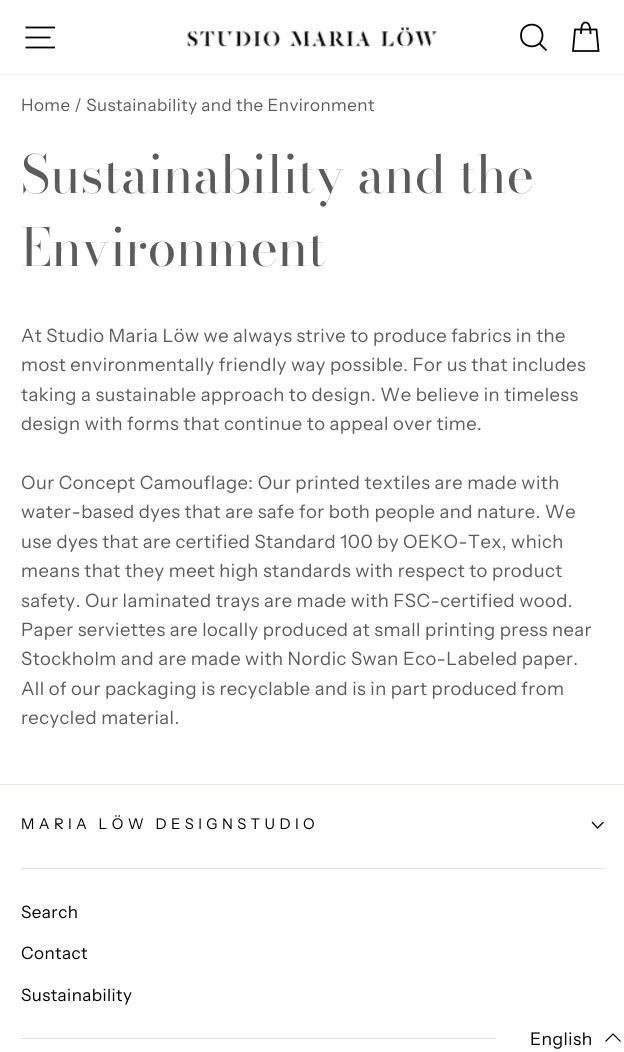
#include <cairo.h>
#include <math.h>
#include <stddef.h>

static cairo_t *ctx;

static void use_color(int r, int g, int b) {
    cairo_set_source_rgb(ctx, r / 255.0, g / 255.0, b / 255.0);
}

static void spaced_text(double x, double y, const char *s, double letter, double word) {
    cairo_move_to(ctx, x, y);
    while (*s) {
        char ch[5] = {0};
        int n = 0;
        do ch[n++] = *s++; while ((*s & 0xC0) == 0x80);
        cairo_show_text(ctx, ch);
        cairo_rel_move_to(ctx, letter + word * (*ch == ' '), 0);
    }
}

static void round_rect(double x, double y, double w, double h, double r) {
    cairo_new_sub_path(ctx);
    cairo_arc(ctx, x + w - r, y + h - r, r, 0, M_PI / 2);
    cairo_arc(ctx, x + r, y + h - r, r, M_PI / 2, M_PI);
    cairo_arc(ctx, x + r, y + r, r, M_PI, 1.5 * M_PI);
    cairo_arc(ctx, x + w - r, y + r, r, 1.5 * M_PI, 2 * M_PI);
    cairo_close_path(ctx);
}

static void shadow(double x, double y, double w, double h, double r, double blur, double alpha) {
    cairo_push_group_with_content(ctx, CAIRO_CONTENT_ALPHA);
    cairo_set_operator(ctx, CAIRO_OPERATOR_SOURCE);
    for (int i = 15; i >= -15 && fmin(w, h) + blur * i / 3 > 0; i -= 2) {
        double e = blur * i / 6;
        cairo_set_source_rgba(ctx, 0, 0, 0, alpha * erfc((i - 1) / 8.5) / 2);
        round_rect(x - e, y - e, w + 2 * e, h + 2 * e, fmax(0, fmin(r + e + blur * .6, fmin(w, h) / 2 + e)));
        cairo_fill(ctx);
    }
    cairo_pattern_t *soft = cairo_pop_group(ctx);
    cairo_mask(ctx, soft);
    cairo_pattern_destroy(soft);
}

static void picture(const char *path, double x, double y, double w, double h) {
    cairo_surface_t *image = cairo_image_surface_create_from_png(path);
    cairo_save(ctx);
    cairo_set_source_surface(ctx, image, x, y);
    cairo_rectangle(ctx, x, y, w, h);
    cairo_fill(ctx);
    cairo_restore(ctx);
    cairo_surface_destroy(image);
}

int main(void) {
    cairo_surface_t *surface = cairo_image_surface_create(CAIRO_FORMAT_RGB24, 624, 1052);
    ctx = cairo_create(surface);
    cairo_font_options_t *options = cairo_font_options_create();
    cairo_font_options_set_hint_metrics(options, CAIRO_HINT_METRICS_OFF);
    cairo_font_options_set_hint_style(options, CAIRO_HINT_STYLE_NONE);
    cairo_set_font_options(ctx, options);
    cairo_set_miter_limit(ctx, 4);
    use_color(255, 255, 255);
    cairo_paint(ctx);
    use_color(0, 0, 0);
    shadow(0, 0, 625, 74, 0, 0.5, 0.2);
    use_color(255, 255, 255);
    cairo_rectangle(ctx, 0, 0, 624, 74);
    cairo_fill(ctx);
    cairo_new_path(ctx);
    cairo_move_to(ctx, 25.5, 27.5);
    cairo_line_to(ctx, 55, 27.5);
    cairo_move_to(ctx, 25.5, 37.5);
    cairo_line_to(ctx, 50.5, 37.5);
    cairo_move_to(ctx, 25.5, 47.5);
    cairo_line_to(ctx, 55, 47.5);
    use_color(0, 0, 0);
    cairo_set_line_width(ctx, 1.8);
    cairo_stroke(ctx);
    picture("img1.png", 187, 27, 251, 20);
    cairo_new_path(ctx);
    cairo_move_to(ctx, 542.5, 35.5);
    cairo_curve_to(ctx, 542.5, 50, 521, 50, 521, 35.5);
    cairo_curve_to(ctx, 521, 21, 542.5, 21, 542.5, 35.5);
    cairo_close_path(ctx);
    cairo_move_to(ctx, 546.5, 50.5);
    cairo_line_to(ctx, 539.5, 43.5);
    cairo_stroke(ctx);
    cairo_new_path(ctx);
    cairo_move_to(ctx, 581, 34);
    cairo_curve_to(ctx, 581, 24.5, 583, 22.5, 585.5, 22.5);
    cairo_curve_to(ctx, 588, 22.5, 590.5, 24.5, 590.5, 34);
    cairo_move_to(ctx, 575, 29.5);
    cairo_line_to(ctx, 596.5, 29.5);
    cairo_line_to(ctx, 598.5, 51);
    cairo_line_to(ctx, 573, 51);
    cairo_close_path(ctx);
    cairo_stroke(ctx);
    cairo_select_font_face(ctx, "Instrument Sans", CAIRO_FONT_SLANT_NORMAL, CAIRO_FONT_WEIGHT_NORMAL);
    cairo_set_font_size(ctx, 17);
    use_color(91, 91, 91);
    spaced_text(21, 111, "Home / Sustainability and the Environment", 0.45, 0);
    cairo_select_font_face(ctx, "Bodoni Moda", CAIRO_FONT_SLANT_NORMAL, CAIRO_FONT_WEIGHT_NORMAL);
    cairo_set_font_size(ctx, 52);
    cairo_move_to(ctx, 21, 193);
    cairo_show_text(ctx, "Sustainability and the");
    cairo_move_to(ctx, 21, 266);
    cairo_show_text(ctx, "Environment");
    cairo_select_font_face(ctx, "Instrument Sans", CAIRO_FONT_SLANT_NORMAL, CAIRO_FONT_WEIGHT_NORMAL);
    cairo_set_font_size(ctx, 18.4);
    spaced_text(21, 342, "At Studio Maria Löw we always strive to produce fabrics in the", 0.45, 0);
    spaced_text(21, 371, "most environmentally friendly way possible. For us that includes", 0.45, 0);
    spaced_text(21, 401, "taking a sustainable approach to design. We believe in timeless", 0.45, 0);
    spaced_text(21, 430, "design with forms that continue to appeal over time.", 0.45, 0);
    spaced_text(21, 489, "Our Concept Camouflage: Our printed textiles are made with", 0.45, 0);
    spaced_text(21, 518, "water-based dyes that are safe for both people and nature. We", 0.45, 0);
    spaced_text(21, 548, "use dyes that are certified Standard 100 by OEKO-Tex, which", 0.45, 0);
    spaced_text(21, 577, "means that they meet high standards with respect to product", 0.45, 0);
    spaced_text(21, 607, "safety. Our laminated trays are made with FSC-certified wood.", 0.45, 0);
    spaced_text(21, 636, "Paper serviettes are locally produced at small printing press near", 0.45, 0);
    spaced_text(21, 665, "Stockholm and are made with Nordic Swan Eco-Labeled paper.", 0.45, 0);
    spaced_text(21, 695, "All of our packaging is recyclable and is in part produced from", 0.45, 0);
    spaced_text(21, 724, "recycled material.", 0.45, 0);
    use_color(232, 232, 225);
    cairo_rectangle(ctx, 0, 784, 624, 1);
    cairo_fill(ctx);
    cairo_set_font_size(ctx, 14.75);
    use_color(0, 0, 0);
    spaced_text(21, 829, "MARIA LÖW DESIGNSTUDIO", 4.4, 0);
    cairo_new_path(ctx);
    cairo_move_to(ctx, 592, 822);
    cairo_line_to(ctx, 597.5, 828);
    cairo_line_to(ctx, 603.5, 822);
    cairo_set_line_width(ctx, 1.3);
    cairo_stroke(ctx);
    use_color(224, 224, 224);
    cairo_rectangle(ctx, 21, 868, 583, 1);
    cairo_fill(ctx);
    cairo_set_font_size(ctx, 17);
    use_color(0, 0, 0);
    spaced_text(21, 918, "Search", 0.45, 0);
    spaced_text(21, 959, "Contact", 0.45, 0);
    spaced_text(21, 1001, "Sustainability", 0.45, 0);
    use_color(224, 224, 224);
    cairo_rectangle(ctx, 21, 1038, 475, 1);
    cairo_fill(ctx);
    cairo_set_font_size(ctx, 17.5);
    use_color(0, 0, 0);
    spaced_text(530, 1045, "English", 0.45, 0);
    cairo_new_path(ctx);
    cairo_move_to(ctx, 620.5, 1041.5);
    cairo_line_to(ctx, 613, 1034);
    cairo_line_to(ctx, 605.5, 1041.5);
    cairo_set_line_width(ctx, 1.2);
    cairo_stroke(ctx);
    cairo_surface_write_to_png(surface, "result.png");
    cairo_font_options_destroy(options);
    cairo_destroy(ctx);
    cairo_surface_destroy(surface);
    return 0;
}
